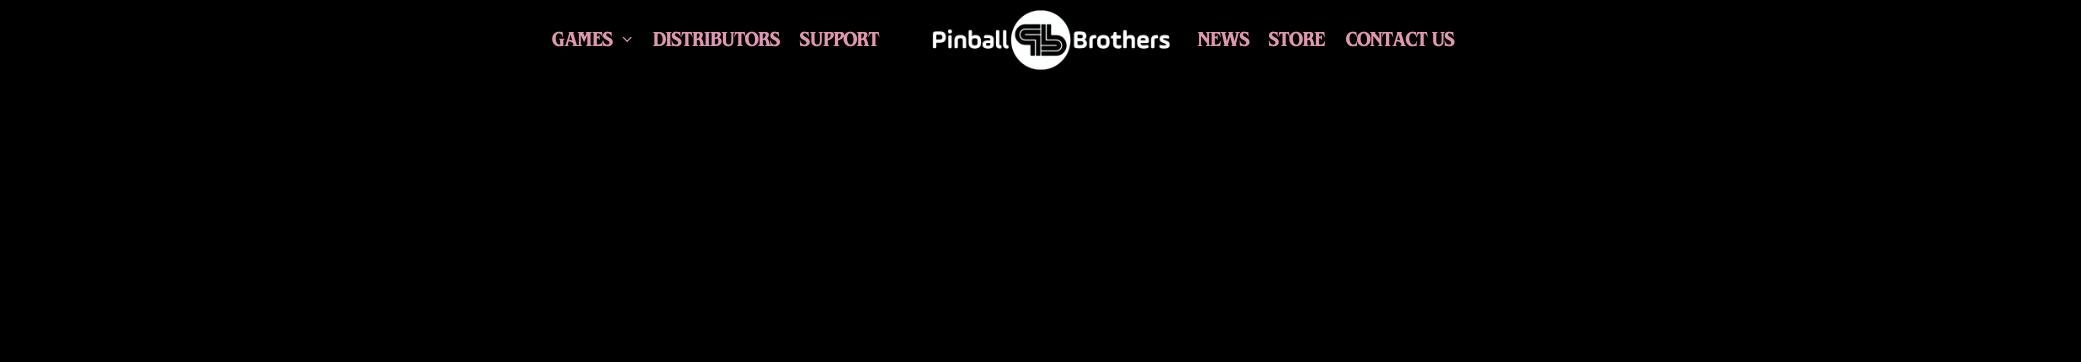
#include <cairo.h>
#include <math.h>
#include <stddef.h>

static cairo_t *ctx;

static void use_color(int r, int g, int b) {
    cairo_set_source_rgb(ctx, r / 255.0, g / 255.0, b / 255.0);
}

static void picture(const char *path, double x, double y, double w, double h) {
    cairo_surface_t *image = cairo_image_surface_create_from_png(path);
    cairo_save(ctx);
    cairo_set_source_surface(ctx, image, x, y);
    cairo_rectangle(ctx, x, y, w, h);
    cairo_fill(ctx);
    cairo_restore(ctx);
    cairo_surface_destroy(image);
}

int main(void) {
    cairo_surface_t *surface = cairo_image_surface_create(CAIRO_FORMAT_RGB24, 2081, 362);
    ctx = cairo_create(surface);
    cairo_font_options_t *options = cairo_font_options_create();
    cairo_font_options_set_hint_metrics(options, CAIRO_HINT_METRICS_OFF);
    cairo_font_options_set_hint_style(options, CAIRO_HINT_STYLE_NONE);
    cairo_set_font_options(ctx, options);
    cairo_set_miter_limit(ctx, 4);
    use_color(0, 0, 0);
    cairo_paint(ctx);
    picture("img1.png", 932, 10, 238, 60);
    cairo_select_font_face(ctx, "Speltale", CAIRO_FONT_SLANT_NORMAL, CAIRO_FONT_WEIGHT_NORMAL);
    cairo_set_font_size(ctx, 20);
    use_color(224, 152, 178);
    cairo_move_to(ctx, 552, 46);
    cairo_show_text(ctx, "GAMES");
    picture("img2.png", 622, 36, 10, 6);
    cairo_move_to(ctx, 653, 46);
    cairo_show_text(ctx, "DISTRIBUTORS");
    cairo_move_to(ctx, 800, 46);
    cairo_show_text(ctx, "SUPPORT");
    cairo_move_to(ctx, 1198, 46);
    cairo_show_text(ctx, "NEWS");
    cairo_move_to(ctx, 1269, 46);
    cairo_show_text(ctx, "STORE");
    cairo_move_to(ctx, 1346, 46);
    cairo_show_text(ctx, "CONTACT US");
    cairo_surface_write_to_png(surface, "result.png");
    cairo_font_options_destroy(options);
    cairo_destroy(ctx);
    cairo_surface_destroy(surface);
    return 0;
}
